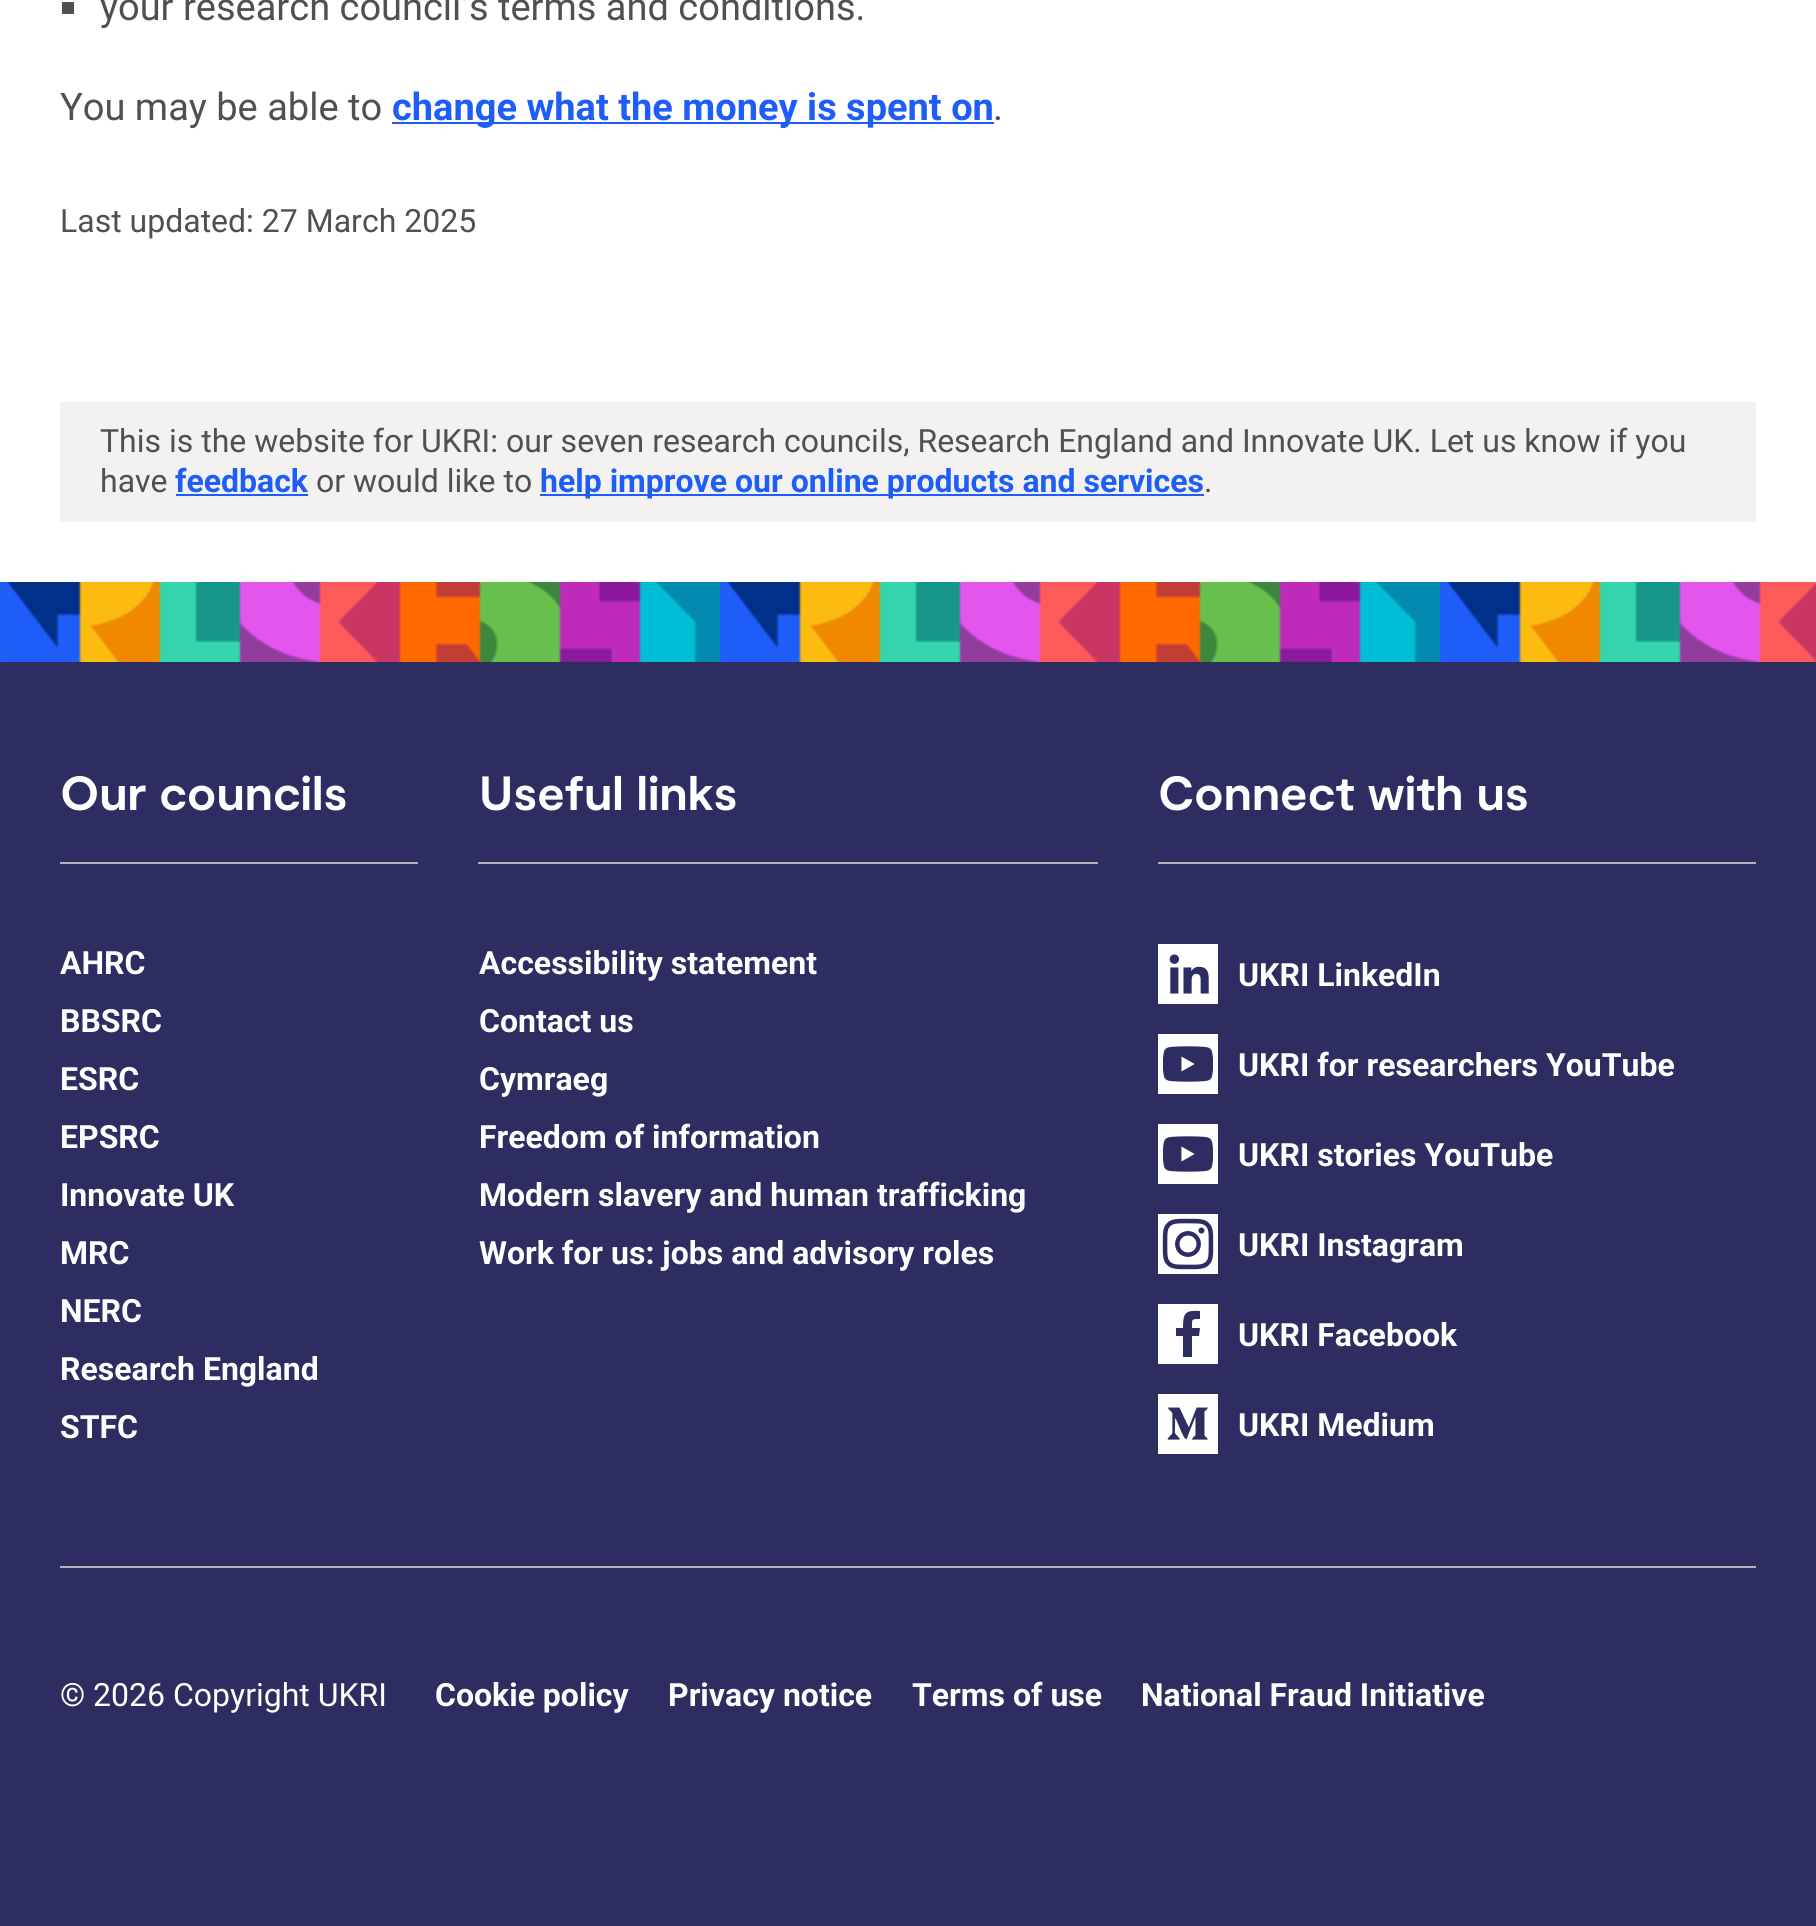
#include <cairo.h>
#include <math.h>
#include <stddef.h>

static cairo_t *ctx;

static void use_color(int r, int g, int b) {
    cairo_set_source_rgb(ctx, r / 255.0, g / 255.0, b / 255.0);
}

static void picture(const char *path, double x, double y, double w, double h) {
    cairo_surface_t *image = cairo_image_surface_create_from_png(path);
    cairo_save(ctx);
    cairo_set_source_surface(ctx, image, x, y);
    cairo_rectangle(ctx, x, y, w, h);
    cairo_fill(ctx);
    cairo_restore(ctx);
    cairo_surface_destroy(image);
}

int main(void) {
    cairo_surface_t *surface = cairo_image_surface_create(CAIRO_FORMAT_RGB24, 1816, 1926);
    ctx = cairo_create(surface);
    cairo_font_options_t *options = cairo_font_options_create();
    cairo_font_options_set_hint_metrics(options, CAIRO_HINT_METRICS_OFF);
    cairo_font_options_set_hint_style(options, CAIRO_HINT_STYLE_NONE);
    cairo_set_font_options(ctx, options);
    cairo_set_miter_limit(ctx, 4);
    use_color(255, 255, 255);
    cairo_paint(ctx);
    use_color(80, 80, 80);
    cairo_rectangle(ctx, 62, 2, 12, 12);
    cairo_fill(ctx);
    cairo_select_font_face(ctx, "Roboto", CAIRO_FONT_SLANT_NORMAL, CAIRO_FONT_WEIGHT_NORMAL);
    cairo_set_font_size(ctx, 38);
    cairo_move_to(ctx, 100, 20);
    cairo_show_text(ctx, "your research council’s terms and conditions.");
    cairo_move_to(ctx, 60, 120);
    cairo_show_text(ctx, "You may be able to");
    use_color(30, 93, 248);
    cairo_rectangle(ctx, 392, 122, 602, 2);
    cairo_fill(ctx);
    cairo_select_font_face(ctx, "Roboto", CAIRO_FONT_SLANT_NORMAL, CAIRO_FONT_WEIGHT_BOLD);
    cairo_move_to(ctx, 392, 120);
    cairo_show_text(ctx, "change what the money is spent on");
    cairo_select_font_face(ctx, "Roboto", CAIRO_FONT_SLANT_NORMAL, CAIRO_FONT_WEIGHT_NORMAL);
    use_color(80, 80, 80);
    cairo_move_to(ctx, 993, 120);
    cairo_show_text(ctx, ".");
    cairo_set_font_size(ctx, 32);
    cairo_move_to(ctx, 60, 232);
    cairo_show_text(ctx, "Last updated: 27 March 2025");
    use_color(243, 242, 241);
    cairo_rectangle(ctx, 60, 402, 1696, 120);
    cairo_fill(ctx);
    use_color(80, 80, 80);
    cairo_move_to(ctx, 100, 452);
    cairo_show_text(ctx, "This is the website for UKRI: our seven research councils, Research England and Innovate UK. Let us know if you");
    cairo_move_to(ctx, 100, 492);
    cairo_show_text(ctx, "have");
    cairo_select_font_face(ctx, "Roboto", CAIRO_FONT_SLANT_NORMAL, CAIRO_FONT_WEIGHT_BOLD);
    use_color(30, 93, 248);
    cairo_move_to(ctx, 175, 492);
    cairo_show_text(ctx, "feedback");
    cairo_rectangle(ctx, 176, 494, 132, 2);
    cairo_fill(ctx);
    cairo_select_font_face(ctx, "Roboto", CAIRO_FONT_SLANT_NORMAL, CAIRO_FONT_WEIGHT_NORMAL);
    use_color(80, 80, 80);
    cairo_move_to(ctx, 316, 492);
    cairo_show_text(ctx, "or would like to");
    use_color(30, 93, 248);
    cairo_rectangle(ctx, 540, 494, 664, 2);
    cairo_fill(ctx);
    cairo_select_font_face(ctx, "Roboto", CAIRO_FONT_SLANT_NORMAL, CAIRO_FONT_WEIGHT_BOLD);
    cairo_move_to(ctx, 540, 492);
    cairo_show_text(ctx, "help improve our online products and services");
    cairo_select_font_face(ctx, "Roboto", CAIRO_FONT_SLANT_NORMAL, CAIRO_FONT_WEIGHT_NORMAL);
    use_color(80, 80, 80);
    cairo_move_to(ctx, 1204, 492);
    cairo_show_text(ctx, ".");
    use_color(46, 45, 98);
    cairo_rectangle(ctx, 0, 662, 1816, 1264);
    cairo_fill(ctx);
    picture("img1.png", 0, 582, 1816, 80);
    use_color(177, 180, 182);
    cairo_rectangle(ctx, 60, 862, 358, 2);
    cairo_fill(ctx);
    cairo_select_font_face(ctx, "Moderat", CAIRO_FONT_SLANT_NORMAL, CAIRO_FONT_WEIGHT_BOLD);
    cairo_set_font_size(ctx, 48);
    use_color(255, 255, 255);
    cairo_move_to(ctx, 60, 810);
    cairo_show_text(ctx, "Our councils");
    cairo_select_font_face(ctx, "Roboto", CAIRO_FONT_SLANT_NORMAL, CAIRO_FONT_WEIGHT_BOLD);
    cairo_set_font_size(ctx, 32);
    cairo_move_to(ctx, 60, 974);
    cairo_show_text(ctx, "AHRC");
    cairo_move_to(ctx, 60, 1032);
    cairo_show_text(ctx, "BBSRC");
    cairo_move_to(ctx, 60, 1090);
    cairo_show_text(ctx, "ESRC");
    cairo_move_to(ctx, 60, 1148);
    cairo_show_text(ctx, "EPSRC");
    cairo_move_to(ctx, 60, 1206);
    cairo_show_text(ctx, "Innovate UK");
    cairo_move_to(ctx, 60, 1264);
    cairo_show_text(ctx, "MRC");
    cairo_move_to(ctx, 60, 1322);
    cairo_show_text(ctx, "NERC");
    cairo_move_to(ctx, 60, 1380);
    cairo_show_text(ctx, "Research England");
    cairo_move_to(ctx, 60, 1438);
    cairo_show_text(ctx, "STFC");
    use_color(177, 180, 182);
    cairo_rectangle(ctx, 478, 862, 620, 2);
    cairo_fill(ctx);
    cairo_select_font_face(ctx, "Moderat", CAIRO_FONT_SLANT_NORMAL, CAIRO_FONT_WEIGHT_BOLD);
    cairo_set_font_size(ctx, 48);
    use_color(255, 255, 255);
    cairo_move_to(ctx, 479, 810);
    cairo_show_text(ctx, "Useful links");
    cairo_select_font_face(ctx, "Roboto", CAIRO_FONT_SLANT_NORMAL, CAIRO_FONT_WEIGHT_BOLD);
    cairo_set_font_size(ctx, 32);
    cairo_move_to(ctx, 479, 974);
    cairo_show_text(ctx, "Accessibility statement");
    cairo_move_to(ctx, 479, 1032);
    cairo_show_text(ctx, "Contact us");
    cairo_move_to(ctx, 479, 1090);
    cairo_show_text(ctx, "Cymraeg");
    cairo_move_to(ctx, 479, 1148);
    cairo_show_text(ctx, "Freedom of information");
    cairo_move_to(ctx, 479, 1206);
    cairo_show_text(ctx, "Modern slavery and human trafficking");
    cairo_move_to(ctx, 479, 1264);
    cairo_show_text(ctx, "Work for us: jobs and advisory roles");
    use_color(177, 180, 182);
    cairo_rectangle(ctx, 1158, 862, 598, 2);
    cairo_fill(ctx);
    cairo_select_font_face(ctx, "Moderat", CAIRO_FONT_SLANT_NORMAL, CAIRO_FONT_WEIGHT_BOLD);
    cairo_set_font_size(ctx, 48);
    use_color(255, 255, 255);
    cairo_move_to(ctx, 1158, 810);
    cairo_show_text(ctx, "Connect with us");
    picture("img2.png", 1158, 944, 60, 60);
    cairo_select_font_face(ctx, "Roboto", CAIRO_FONT_SLANT_NORMAL, CAIRO_FONT_WEIGHT_BOLD);
    cairo_set_font_size(ctx, 32);
    cairo_move_to(ctx, 1238, 986);
    cairo_show_text(ctx, "UKRI LinkedIn");
    picture("img3.png", 1158, 1034, 60, 60);
    cairo_move_to(ctx, 1238, 1076);
    cairo_show_text(ctx, "UKRI for researchers YouTube");
    picture("img3.png", 1158, 1124, 60, 60);
    cairo_move_to(ctx, 1238, 1166);
    cairo_show_text(ctx, "UKRI stories YouTube");
    picture("img4.png", 1158, 1214, 60, 60);
    cairo_move_to(ctx, 1238, 1256);
    cairo_show_text(ctx, "UKRI Instagram");
    cairo_new_path(ctx);
    cairo_move_to(ctx, 1158, 1304);
    cairo_line_to(ctx, 1158, 1364);
    cairo_line_to(ctx, 1218, 1364);
    cairo_line_to(ctx, 1218, 1304);
    cairo_close_path(ctx);
    cairo_move_to(ctx, 1200, 1319);
    cairo_curve_to(ctx, 1191, 1319, 1192, 1319, 1192, 1328);
    cairo_line_to(ctx, 1200, 1328);
    cairo_line_to(ctx, 1199, 1336);
    cairo_line_to(ctx, 1192, 1336);
    cairo_line_to(ctx, 1192, 1357);
    cairo_line_to(ctx, 1183, 1357);
    cairo_line_to(ctx, 1183, 1336);
    cairo_line_to(ctx, 1176, 1336);
    cairo_line_to(ctx, 1176, 1328);
    cairo_line_to(ctx, 1183, 1328);
    cairo_curve_to(ctx, 1183, 1313, 1185, 1310, 1200, 1311);
    cairo_close_path(ctx);
    cairo_fill(ctx);
    cairo_move_to(ctx, 1238, 1346);
    cairo_show_text(ctx, "UKRI Facebook");
    picture("img5.png", 1158, 1394, 60, 60);
    cairo_move_to(ctx, 1238, 1436);
    cairo_show_text(ctx, "UKRI Medium");
    use_color(177, 180, 182);
    cairo_rectangle(ctx, 60, 1566, 1696, 2);
    cairo_fill(ctx);
    cairo_select_font_face(ctx, "Roboto", CAIRO_FONT_SLANT_NORMAL, CAIRO_FONT_WEIGHT_NORMAL);
    use_color(255, 255, 255);
    cairo_move_to(ctx, 60, 1706);
    cairo_show_text(ctx, "© 2026 Copyright UKRI");
    cairo_select_font_face(ctx, "Roboto", CAIRO_FONT_SLANT_NORMAL, CAIRO_FONT_WEIGHT_BOLD);
    cairo_move_to(ctx, 435, 1706);
    cairo_show_text(ctx, "Cookie policy");
    cairo_move_to(ctx, 668, 1706);
    cairo_show_text(ctx, "Privacy notice");
    cairo_move_to(ctx, 912, 1706);
    cairo_show_text(ctx, "Terms of use");
    cairo_move_to(ctx, 1141, 1706);
    cairo_show_text(ctx, "National Fraud Initiative");
    cairo_surface_write_to_png(surface, "result.png");
    cairo_font_options_destroy(options);
    cairo_destroy(ctx);
    cairo_surface_destroy(surface);
    return 0;
}
